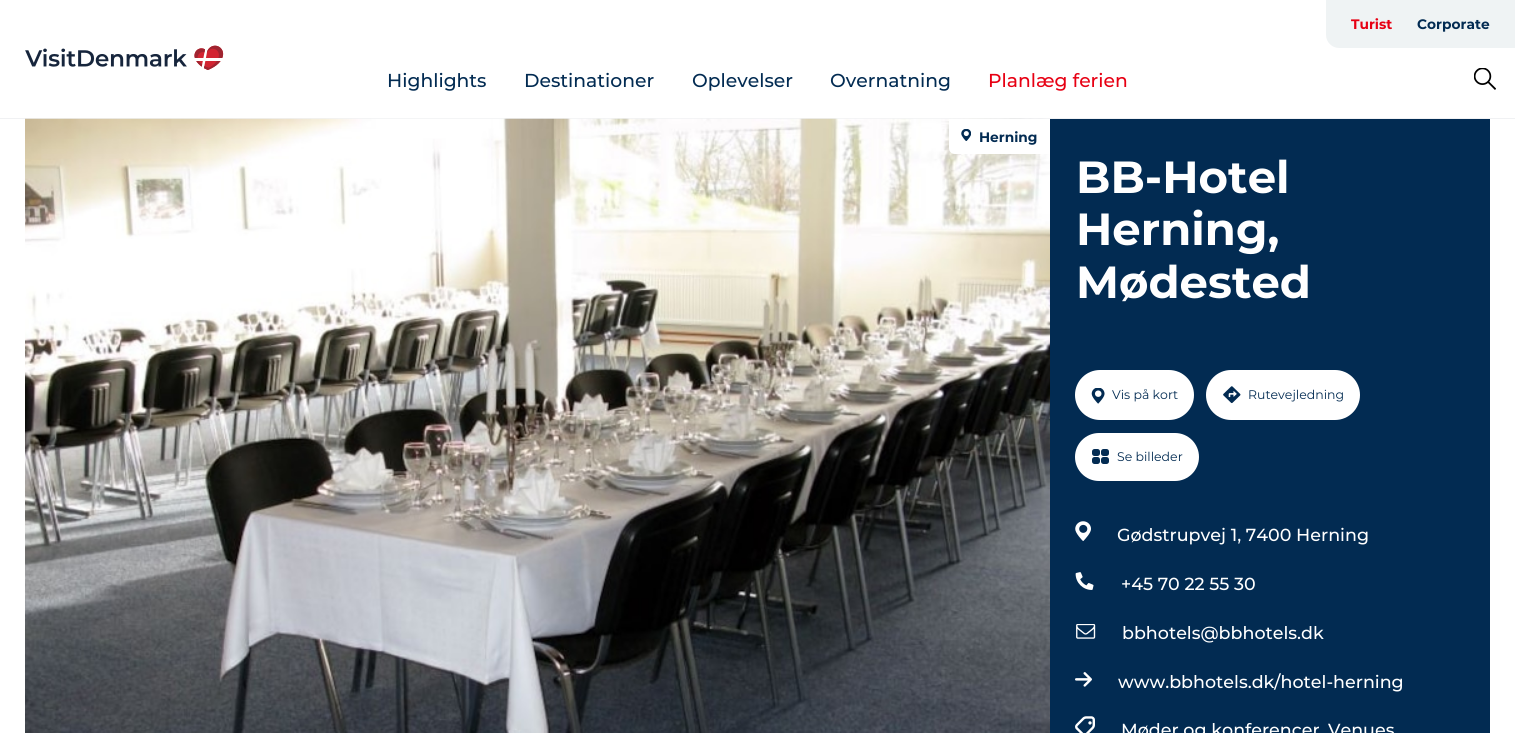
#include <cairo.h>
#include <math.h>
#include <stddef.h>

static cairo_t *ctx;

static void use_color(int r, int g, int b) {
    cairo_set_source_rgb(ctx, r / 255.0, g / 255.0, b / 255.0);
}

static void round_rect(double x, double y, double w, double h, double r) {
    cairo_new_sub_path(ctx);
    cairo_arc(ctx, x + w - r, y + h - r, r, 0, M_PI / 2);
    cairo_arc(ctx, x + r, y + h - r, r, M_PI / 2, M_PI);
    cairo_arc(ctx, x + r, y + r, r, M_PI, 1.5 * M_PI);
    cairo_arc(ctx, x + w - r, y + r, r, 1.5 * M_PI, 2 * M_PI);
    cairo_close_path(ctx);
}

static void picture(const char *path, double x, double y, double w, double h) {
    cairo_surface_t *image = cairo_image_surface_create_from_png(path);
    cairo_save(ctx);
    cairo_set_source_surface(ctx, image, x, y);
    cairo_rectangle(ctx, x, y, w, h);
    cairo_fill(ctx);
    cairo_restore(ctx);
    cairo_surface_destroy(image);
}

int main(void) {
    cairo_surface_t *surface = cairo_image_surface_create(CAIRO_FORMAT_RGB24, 1515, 733);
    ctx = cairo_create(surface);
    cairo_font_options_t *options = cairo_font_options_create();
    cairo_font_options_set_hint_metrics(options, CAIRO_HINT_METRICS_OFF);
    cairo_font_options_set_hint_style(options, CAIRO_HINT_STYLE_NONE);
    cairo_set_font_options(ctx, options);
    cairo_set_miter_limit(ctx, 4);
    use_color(255, 255, 255);
    cairo_paint(ctx);
    use_color(240, 241, 243);
    cairo_rectangle(ctx, 0, 118, 1515, 1);
    cairo_fill(ctx);
    picture("img1.png", 25, 45, 199, 25);
    use_color(239, 243, 244);
    cairo_new_path(ctx);
    cairo_move_to(ctx, 1326, 0);
    cairo_line_to(ctx, 1515, 0);
    cairo_line_to(ctx, 1515, 48);
    cairo_line_to(ctx, 1339, 48);
    cairo_curve_to(ctx, 1332, 48, 1326, 42, 1326, 35);
    cairo_close_path(ctx);
    cairo_fill(ctx);
    cairo_select_font_face(ctx, "Montserrat", CAIRO_FONT_SLANT_NORMAL, CAIRO_FONT_WEIGHT_BOLD);
    cairo_set_font_size(ctx, 13.75);
    use_color(231, 0, 19);
    cairo_move_to(ctx, 1351, 29);
    cairo_show_text(ctx, "Turist");
    use_color(2, 43, 82);
    cairo_move_to(ctx, 1417, 29);
    cairo_show_text(ctx, "Corporate");
    cairo_select_font_face(ctx, "Montserrat Medium", CAIRO_FONT_SLANT_NORMAL, CAIRO_FONT_WEIGHT_NORMAL);
    cairo_set_font_size(ctx, 18.75);
    cairo_move_to(ctx, 387, 87);
    cairo_show_text(ctx, "Highlights");
    cairo_move_to(ctx, 524, 87);
    cairo_show_text(ctx, "Destinationer");
    cairo_move_to(ctx, 692, 87);
    cairo_show_text(ctx, "Oplevelser");
    cairo_move_to(ctx, 830, 87);
    cairo_show_text(ctx, "Overnatning");
    use_color(231, 0, 19);
    cairo_move_to(ctx, 988, 87);
    cairo_show_text(ctx, "Planlæg ferien");
    picture("img2.png", 1474, 68, 22, 22);
    picture("img3.png", 25, 118, 1025, 615);
    use_color(255, 255, 255);
    cairo_new_path(ctx);
    cairo_move_to(ctx, 949, 119);
    cairo_line_to(ctx, 1050, 119);
    cairo_line_to(ctx, 1050, 154);
    cairo_line_to(ctx, 955, 154);
    cairo_curve_to(ctx, 951.5, 154, 949, 151.5, 949, 148);
    cairo_close_path(ctx);
    cairo_fill(ctx);
    picture("img4.png", 961, 129, 10, 12);
    cairo_select_font_face(ctx, "Montserrat", CAIRO_FONT_SLANT_NORMAL, CAIRO_FONT_WEIGHT_BOLD);
    cairo_set_font_size(ctx, 13.75);
    use_color(2, 43, 82);
    cairo_move_to(ctx, 979, 142);
    cairo_show_text(ctx, "Herning");
    cairo_rectangle(ctx, 1050, 119, 440, 614);
    cairo_fill(ctx);
    cairo_set_font_size(ctx, 45);
    use_color(255, 255, 255);
    cairo_move_to(ctx, 1076, 193);
    cairo_show_text(ctx, "BB-Hotel");
    cairo_move_to(ctx, 1076, 245);
    cairo_show_text(ctx, "Herning,");
    cairo_move_to(ctx, 1076, 298);
    cairo_show_text(ctx, "Mødested");
    round_rect(1075, 370, 119, 50, 25);
    cairo_fill(ctx);
    picture("img5.png", 1091, 388, 14, 16);
    cairo_select_font_face(ctx, "Montserrat", CAIRO_FONT_SLANT_NORMAL, CAIRO_FONT_WEIGHT_NORMAL);
    cairo_set_font_size(ctx, 12.5);
    use_color(2, 43, 82);
    cairo_move_to(ctx, 1112, 399);
    cairo_show_text(ctx, "Vis på kort");
    use_color(255, 255, 255);
    round_rect(1206, 370, 154, 50, 25);
    cairo_fill(ctx);
    picture("img6.png", 1223, 386, 18, 18);
    use_color(2, 43, 82);
    cairo_move_to(ctx, 1248, 399);
    cairo_show_text(ctx, "Rutevejledning");
    use_color(255, 255, 255);
    round_rect(1075, 433, 124, 48, 24);
    cairo_fill(ctx);
    picture("img7.png", 1092, 449, 17, 15);
    use_color(2, 43, 82);
    cairo_move_to(ctx, 1117, 461);
    cairo_show_text(ctx, "Se billeder");
    picture("img8.png", 1075, 521, 16, 20);
    cairo_select_font_face(ctx, "Montserrat Medium", CAIRO_FONT_SLANT_NORMAL, CAIRO_FONT_WEIGHT_NORMAL);
    cairo_set_font_size(ctx, 17.5);
    use_color(255, 255, 255);
    cairo_move_to(ctx, 1117, 541);
    cairo_show_text(ctx, "Gødstrupvej 1, 7400 Herning");
    picture("img9.png", 1075, 572, 19, 18);
    cairo_move_to(ctx, 1121, 590);
    cairo_show_text(ctx, "+45 70 22 55 30");
    picture("img10.png", 1076, 624, 20, 15);
    cairo_move_to(ctx, 1122, 639);
    cairo_show_text(ctx, "bbhotels@bbhotels.dk");
    picture("img11.png", 1075, 672, 17, 15);
    cairo_move_to(ctx, 1118, 688);
    cairo_show_text(ctx, "www.bbhotels.dk/hotel-herning");
    picture("img12.png", 1075, 716, 20, 17);
    cairo_move_to(ctx, 1121, 736);
    cairo_show_text(ctx, "Møder og konferencer");
    cairo_move_to(ctx, 1328, 736);
    cairo_show_text(ctx, "Venues");
    cairo_surface_write_to_png(surface, "result.png");
    cairo_font_options_destroy(options);
    cairo_destroy(ctx);
    cairo_surface_destroy(surface);
    return 0;
}
